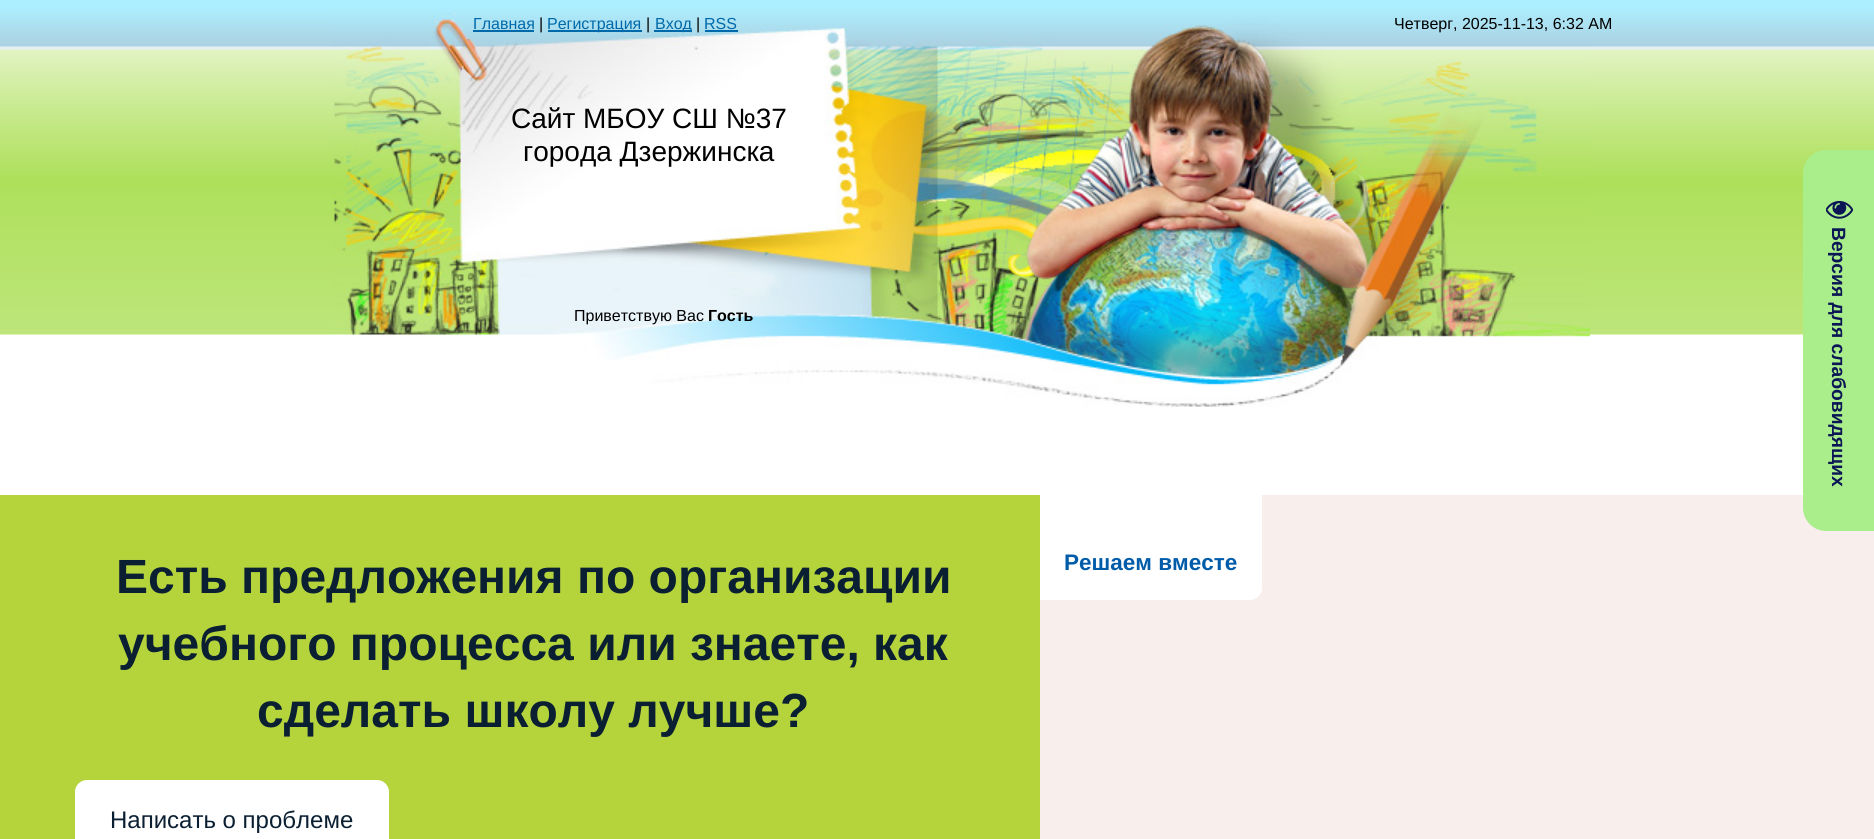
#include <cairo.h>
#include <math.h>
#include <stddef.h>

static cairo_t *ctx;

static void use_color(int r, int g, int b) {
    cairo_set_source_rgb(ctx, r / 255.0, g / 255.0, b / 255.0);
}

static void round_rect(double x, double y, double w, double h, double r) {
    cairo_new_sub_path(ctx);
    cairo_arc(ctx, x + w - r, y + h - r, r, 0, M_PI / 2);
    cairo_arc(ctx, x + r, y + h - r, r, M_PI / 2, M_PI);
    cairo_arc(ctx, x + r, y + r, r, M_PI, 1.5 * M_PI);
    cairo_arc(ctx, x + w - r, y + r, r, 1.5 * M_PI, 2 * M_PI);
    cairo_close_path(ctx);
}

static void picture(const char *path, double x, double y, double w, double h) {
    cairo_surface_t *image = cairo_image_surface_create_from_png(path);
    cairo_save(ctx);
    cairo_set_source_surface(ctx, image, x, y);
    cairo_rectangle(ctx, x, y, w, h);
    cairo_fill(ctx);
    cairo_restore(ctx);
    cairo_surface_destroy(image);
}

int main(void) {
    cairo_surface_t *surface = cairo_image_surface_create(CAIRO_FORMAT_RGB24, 1874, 839);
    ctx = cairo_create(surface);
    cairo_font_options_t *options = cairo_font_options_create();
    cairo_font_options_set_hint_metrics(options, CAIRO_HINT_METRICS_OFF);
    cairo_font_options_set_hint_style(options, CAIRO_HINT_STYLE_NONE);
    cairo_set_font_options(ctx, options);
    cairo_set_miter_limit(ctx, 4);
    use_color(255, 255, 255);
    cairo_paint(ctx);
    picture("img1.png", 0, 0, 1874, 335);
    picture("img2.png", 333, 12, 1257, 395);
    cairo_select_font_face(ctx, "Liberation Sans", CAIRO_FONT_SLANT_NORMAL, CAIRO_FONT_WEIGHT_NORMAL);
    cairo_set_font_size(ctx, 16);
    use_color(0, 105, 169);
    cairo_move_to(ctx, 473, 29);
    cairo_show_text(ctx, "Главная");
    cairo_rectangle(ctx, 473, 30, 61, 2);
    cairo_fill(ctx);
    use_color(0, 0, 0);
    cairo_move_to(ctx, 539, 29);
    cairo_show_text(ctx, "|");
    use_color(0, 105, 169);
    cairo_rectangle(ctx, 548, 30, 94, 2);
    cairo_fill(ctx);
    cairo_move_to(ctx, 547, 29);
    cairo_show_text(ctx, "Регистрация");
    use_color(0, 0, 0);
    cairo_move_to(ctx, 646, 29);
    cairo_show_text(ctx, "|");
    use_color(0, 105, 169);
    cairo_rectangle(ctx, 654, 30, 38, 2);
    cairo_fill(ctx);
    cairo_move_to(ctx, 655, 29);
    cairo_show_text(ctx, "Вход");
    use_color(0, 0, 0);
    cairo_move_to(ctx, 696, 29);
    cairo_show_text(ctx, "|");
    use_color(0, 105, 169);
    cairo_move_to(ctx, 704, 29);
    cairo_show_text(ctx, "RSS");
    cairo_rectangle(ctx, 705, 30, 33, 2);
    cairo_fill(ctx);
    use_color(0, 0, 0);
    cairo_move_to(ctx, 1394, 29);
    cairo_show_text(ctx, "Четверг, 2025-11-13, 6:32 AM");
    cairo_set_font_size(ctx, 28);
    cairo_move_to(ctx, 511, 128);
    cairo_show_text(ctx, "Сайт МБОУ СШ №37");
    cairo_move_to(ctx, 523, 161);
    cairo_show_text(ctx, "города Дзержинска");
    cairo_set_font_size(ctx, 16);
    cairo_move_to(ctx, 574, 321);
    cairo_show_text(ctx, "Приветствую Вас");
    cairo_select_font_face(ctx, "Liberation Sans", CAIRO_FONT_SLANT_NORMAL, CAIRO_FONT_WEIGHT_BOLD);
    cairo_move_to(ctx, 708, 321);
    cairo_show_text(ctx, "Гость");
    use_color(181, 212, 60);
    cairo_rectangle(ctx, 0, 495, 1040, 344);
    cairo_fill(ctx);
    cairo_set_font_size(ctx, 48);
    use_color(11, 31, 51);
    cairo_move_to(ctx, 116, 593);
    cairo_show_text(ctx, "Есть предложения по организации");
    cairo_move_to(ctx, 118, 660);
    cairo_show_text(ctx, "учебного процесса или знаете, как");
    cairo_move_to(ctx, 257, 727);
    cairo_show_text(ctx, "сделать школу лучше?");
    use_color(255, 255, 255);
    round_rect(75, 780, 314, 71, 12);
    cairo_fill(ctx);
    cairo_select_font_face(ctx, "Liberation Sans", CAIRO_FONT_SLANT_NORMAL, CAIRO_FONT_WEIGHT_NORMAL);
    cairo_set_font_size(ctx, 24);
    use_color(11, 31, 51);
    cairo_move_to(ctx, 110, 828);
    cairo_show_text(ctx, "Написать о проблеме");
    use_color(248, 239, 236);
    cairo_rectangle(ctx, 1040, 495, 834, 344);
    cairo_fill(ctx);
    use_color(255, 255, 255);
    cairo_new_path(ctx);
    cairo_move_to(ctx, 1040, 495);
    cairo_line_to(ctx, 1262, 495);
    cairo_line_to(ctx, 1262, 588);
    cairo_curve_to(ctx, 1262, 594.5, 1256.5, 600, 1250, 600);
    cairo_line_to(ctx, 1040, 600);
    cairo_close_path(ctx);
    cairo_fill(ctx);
    cairo_select_font_face(ctx, "Liberation Sans", CAIRO_FONT_SLANT_NORMAL, CAIRO_FONT_WEIGHT_BOLD);
    cairo_set_font_size(ctx, 22.5);
    use_color(0, 92, 169);
    cairo_move_to(ctx, 1064, 570);
    cairo_show_text(ctx, "Решаем вместе");
    use_color(170, 237, 139);
    cairo_new_path(ctx);
    cairo_move_to(ctx, 1826, 150);
    cairo_line_to(ctx, 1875, 150);
    cairo_line_to(ctx, 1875, 531);
    cairo_line_to(ctx, 1826, 531);
    cairo_curve_to(ctx, 1813.5, 531, 1803, 520.5, 1803, 508);
    cairo_line_to(ctx, 1803, 173);
    cairo_curve_to(ctx, 1803, 160.5, 1813.5, 150, 1826, 150);
    cairo_close_path(ctx);
    cairo_fill(ctx);
    picture("img3.png", 1826, 200, 27, 19);
    cairo_set_font_size(ctx, 19.25);
    use_color(11, 22, 84);
    cairo_save(ctx);
    cairo_translate(ctx, 1832, 227);
    cairo_rotate(ctx, 90 * M_PI / 180);
    cairo_move_to(ctx, 0, 0);
    cairo_show_text(ctx, "Версия для слабовидящих");
    cairo_restore(ctx);
    cairo_surface_write_to_png(surface, "result.png");
    cairo_font_options_destroy(options);
    cairo_destroy(ctx);
    cairo_surface_destroy(surface);
    return 0;
}
